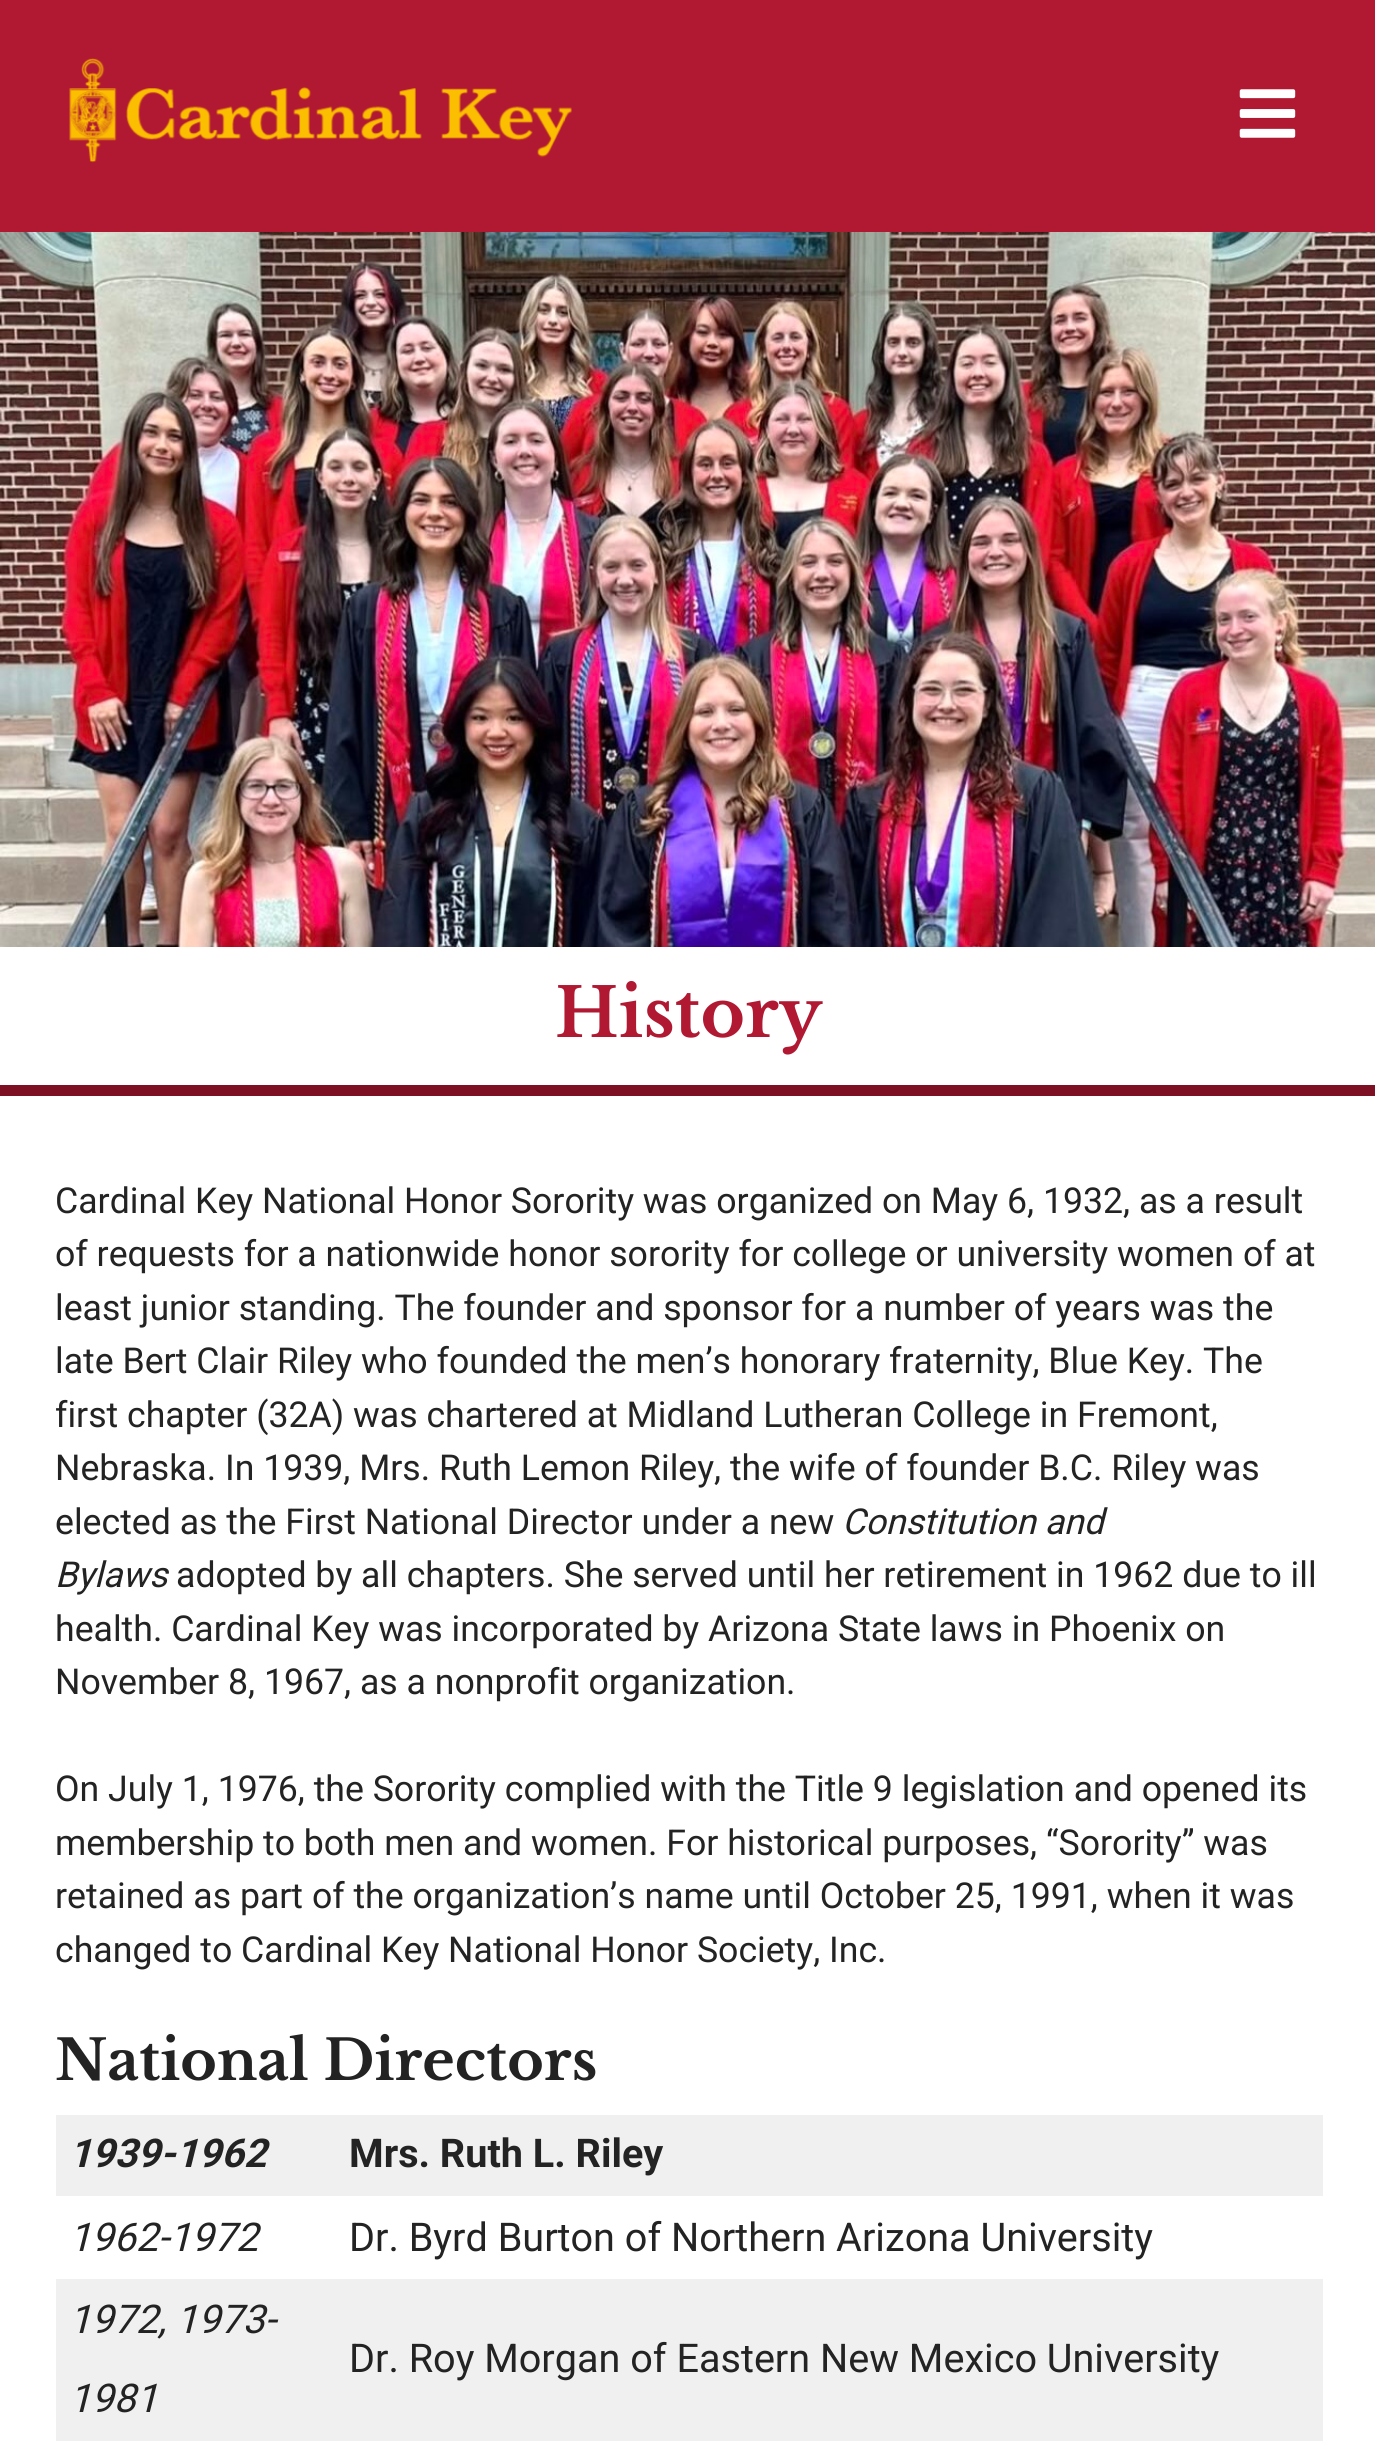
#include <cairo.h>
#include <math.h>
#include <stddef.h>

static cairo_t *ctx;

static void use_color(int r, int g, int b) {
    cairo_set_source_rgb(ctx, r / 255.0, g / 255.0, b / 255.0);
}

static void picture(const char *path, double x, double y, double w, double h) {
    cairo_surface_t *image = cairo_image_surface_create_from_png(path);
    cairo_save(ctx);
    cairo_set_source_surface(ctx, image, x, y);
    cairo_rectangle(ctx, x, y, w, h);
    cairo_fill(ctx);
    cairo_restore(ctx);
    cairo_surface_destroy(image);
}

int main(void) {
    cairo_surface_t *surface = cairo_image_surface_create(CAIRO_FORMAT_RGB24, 1375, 2452);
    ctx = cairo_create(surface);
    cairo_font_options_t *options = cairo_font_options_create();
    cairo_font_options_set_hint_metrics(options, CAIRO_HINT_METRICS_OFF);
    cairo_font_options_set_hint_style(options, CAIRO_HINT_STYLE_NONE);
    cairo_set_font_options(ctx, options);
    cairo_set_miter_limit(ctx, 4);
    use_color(255, 255, 255);
    cairo_paint(ctx);
    use_color(177, 25, 50);
    cairo_rectangle(ctx, 0, 0, 1375, 232);
    cairo_fill(ctx);
    picture("img1.png", 69, 58, 503, 105);
    picture("img2.png", 1239, 89, 57, 49);
    use_color(125, 17, 35);
    cairo_rectangle(ctx, 0, 1085, 1375, 11);
    cairo_fill(ctx);
    picture("img3.png", 0, 232, 1375, 715);
    cairo_select_font_face(ctx, "Libre Baskerville", CAIRO_FONT_SLANT_NORMAL, CAIRO_FONT_WEIGHT_BOLD);
    cairo_set_font_size(ctx, 67.5);
    use_color(177, 25, 50);
    cairo_move_to(ctx, 555, 1037);
    cairo_show_text(ctx, "History");
    cairo_select_font_face(ctx, "Roboto", CAIRO_FONT_SLANT_NORMAL, CAIRO_FONT_WEIGHT_NORMAL);
    cairo_set_font_size(ctx, 35.65);
    use_color(35, 35, 35);
    cairo_move_to(ctx, 55, 1213);
    cairo_show_text(ctx, "Cardinal Key National Honor Sorority was organized on May 6, 1932, as a result");
    cairo_move_to(ctx, 55, 1266);
    cairo_show_text(ctx, "of requests for a nationwide honor sorority for college or university women of at");
    cairo_move_to(ctx, 55, 1320);
    cairo_show_text(ctx, "least junior standing. The founder and sponsor for a number of years was the");
    cairo_move_to(ctx, 55, 1373);
    cairo_show_text(ctx, "late Bert Clair Riley who founded the men’s honorary fraternity, Blue Key. The");
    cairo_move_to(ctx, 55, 1427);
    cairo_show_text(ctx, "first chapter (32A) was chartered at Midland Lutheran College in Fremont,");
    cairo_move_to(ctx, 55, 1480);
    cairo_show_text(ctx, "Nebraska. In 1939, Mrs. Ruth Lemon Riley, the wife of founder B.C. Riley was");
    cairo_move_to(ctx, 55, 1534);
    cairo_show_text(ctx, "elected as the First National Director under a new");
    cairo_select_font_face(ctx, "Roboto", CAIRO_FONT_SLANT_ITALIC, CAIRO_FONT_WEIGHT_NORMAL);
    cairo_move_to(ctx, 842, 1534);
    cairo_show_text(ctx, "Constitution and");
    cairo_move_to(ctx, 55, 1587);
    cairo_show_text(ctx, "Bylaws");
    cairo_select_font_face(ctx, "Roboto", CAIRO_FONT_SLANT_NORMAL, CAIRO_FONT_WEIGHT_NORMAL);
    cairo_move_to(ctx, 176, 1587);
    cairo_show_text(ctx, "adopted by all chapters. She served until her retirement in 1962 due to ill");
    cairo_move_to(ctx, 55, 1641);
    cairo_show_text(ctx, "health. Cardinal Key was incorporated by Arizona State laws in Phoenix on");
    cairo_move_to(ctx, 55, 1694);
    cairo_show_text(ctx, "November 8, 1967, as a nonprofit organization.");
    cairo_move_to(ctx, 55, 1801);
    cairo_show_text(ctx, "On July 1, 1976, the Sorority complied with the Title 9 legislation and opened its");
    cairo_move_to(ctx, 55, 1855);
    cairo_show_text(ctx, "membership to both men and women. For historical purposes, “Sorority” was");
    cairo_move_to(ctx, 55, 1908);
    cairo_show_text(ctx, "retained as part of the organization’s name until October 25, 1991, when it was");
    cairo_move_to(ctx, 55, 1962);
    cairo_show_text(ctx, "changed to Cardinal Key National Honor Society, Inc.");
    cairo_select_font_face(ctx, "Libre Baskerville", CAIRO_FONT_SLANT_NORMAL, CAIRO_FONT_WEIGHT_BOLD);
    cairo_set_font_size(ctx, 55.5);
    cairo_move_to(ctx, 55, 2080);
    cairo_show_text(ctx, "National Directors");
    use_color(240, 240, 240);
    cairo_rectangle(ctx, 56, 2115, 1267, 81);
    cairo_fill(ctx);
    cairo_select_font_face(ctx, "Roboto", CAIRO_FONT_SLANT_ITALIC, CAIRO_FONT_WEIGHT_BOLD);
    cairo_set_font_size(ctx, 39.6);
    use_color(35, 35, 35);
    cairo_move_to(ctx, 69, 2167);
    cairo_show_text(ctx, "1939-1962");
    cairo_select_font_face(ctx, "Roboto", CAIRO_FONT_SLANT_NORMAL, CAIRO_FONT_WEIGHT_BOLD);
    cairo_move_to(ctx, 349, 2167);
    cairo_show_text(ctx, "Mrs. Ruth L. Riley");
    cairo_select_font_face(ctx, "Roboto", CAIRO_FONT_SLANT_ITALIC, CAIRO_FONT_WEIGHT_NORMAL);
    cairo_move_to(ctx, 69, 2251);
    cairo_show_text(ctx, "1962-1972");
    cairo_select_font_face(ctx, "Roboto", CAIRO_FONT_SLANT_NORMAL, CAIRO_FONT_WEIGHT_NORMAL);
    cairo_move_to(ctx, 349, 2251);
    cairo_show_text(ctx, "Dr. Byrd Burton of Northern Arizona University");
    use_color(240, 240, 240);
    cairo_rectangle(ctx, 56, 2279, 1267, 162);
    cairo_fill(ctx);
    cairo_select_font_face(ctx, "Roboto", CAIRO_FONT_SLANT_ITALIC, CAIRO_FONT_WEIGHT_NORMAL);
    use_color(35, 35, 35);
    cairo_move_to(ctx, 69, 2333);
    cairo_show_text(ctx, "1972, 1973-");
    cairo_move_to(ctx, 69, 2412);
    cairo_show_text(ctx, "1981");
    cairo_select_font_face(ctx, "Roboto", CAIRO_FONT_SLANT_NORMAL, CAIRO_FONT_WEIGHT_NORMAL);
    cairo_move_to(ctx, 349, 2372);
    cairo_show_text(ctx, "Dr. Roy Morgan of Eastern New Mexico University");
    cairo_surface_write_to_png(surface, "result.png");
    cairo_font_options_destroy(options);
    cairo_destroy(ctx);
    cairo_surface_destroy(surface);
    return 0;
}
